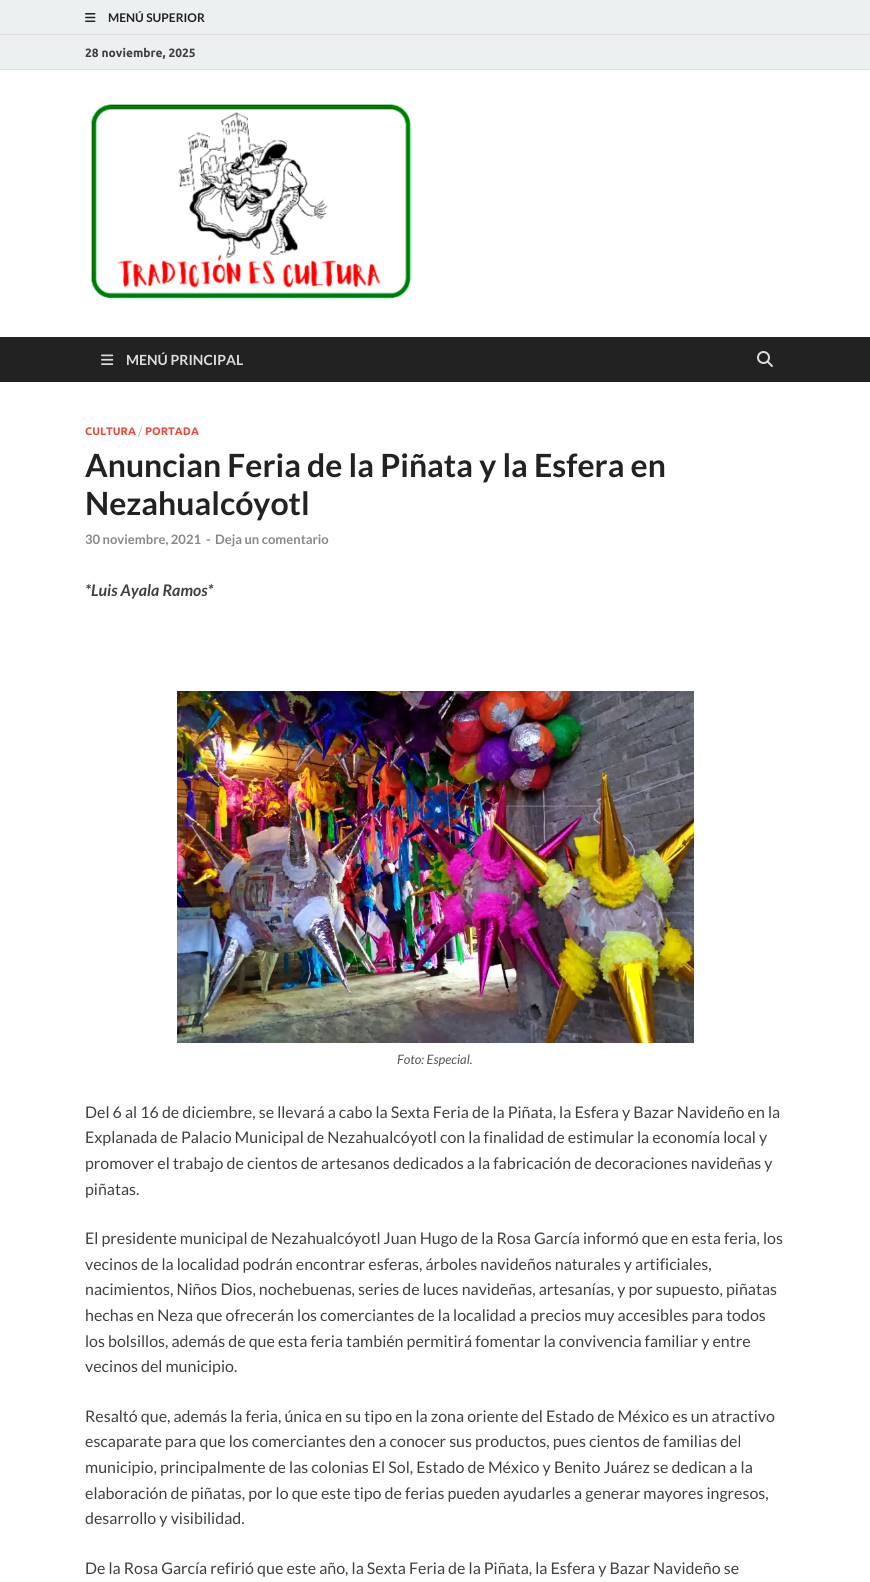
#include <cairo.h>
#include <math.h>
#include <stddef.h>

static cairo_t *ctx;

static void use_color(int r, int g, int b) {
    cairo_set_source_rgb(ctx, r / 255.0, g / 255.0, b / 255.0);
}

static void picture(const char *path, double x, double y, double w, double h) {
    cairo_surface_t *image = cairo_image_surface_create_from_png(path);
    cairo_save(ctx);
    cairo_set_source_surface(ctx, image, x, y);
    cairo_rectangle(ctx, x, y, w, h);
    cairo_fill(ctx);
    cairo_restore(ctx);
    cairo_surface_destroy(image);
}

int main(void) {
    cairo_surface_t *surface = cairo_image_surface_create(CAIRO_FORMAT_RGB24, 870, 1582);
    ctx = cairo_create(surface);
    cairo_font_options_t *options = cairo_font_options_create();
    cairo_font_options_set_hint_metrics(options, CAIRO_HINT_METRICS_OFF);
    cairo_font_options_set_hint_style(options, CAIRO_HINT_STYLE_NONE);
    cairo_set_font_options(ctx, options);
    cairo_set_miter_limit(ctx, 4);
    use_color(255, 255, 255);
    cairo_paint(ctx);
    use_color(236, 240, 241);
    cairo_rectangle(ctx, 0, 0, 870, 34);
    cairo_fill(ctx);
    use_color(221, 221, 221);
    cairo_rectangle(ctx, 0, 34, 870, 1);
    cairo_fill(ctx);
    picture("img1.png", 85, 13, 11, 9);
    cairo_select_font_face(ctx, "Lato", CAIRO_FONT_SLANT_NORMAL, CAIRO_FONT_WEIGHT_BOLD);
    cairo_set_font_size(ctx, 12);
    use_color(34, 34, 34);
    cairo_move_to(ctx, 108, 22);
    cairo_show_text(ctx, "MENÚ SUPERIOR");
    use_color(236, 240, 241);
    cairo_rectangle(ctx, 0, 35, 870, 34);
    cairo_fill(ctx);
    use_color(221, 221, 221);
    cairo_rectangle(ctx, 0, 69, 870, 1);
    cairo_fill(ctx);
    cairo_select_font_face(ctx, "Ubuntu", CAIRO_FONT_SLANT_NORMAL, CAIRO_FONT_WEIGHT_BOLD);
    use_color(64, 64, 64);
    cairo_move_to(ctx, 85, 57);
    cairo_show_text(ctx, "28 noviembre, 2025");
    picture("img2.png", 91, 104, 320, 195);
    use_color(34, 34, 34);
    cairo_rectangle(ctx, 0, 337, 870, 45);
    cairo_fill(ctx);
    picture("img3.png", 101, 354, 13, 11);
    cairo_select_font_face(ctx, "Lato", CAIRO_FONT_SLANT_NORMAL, CAIRO_FONT_WEIGHT_BOLD);
    cairo_set_font_size(ctx, 14);
    use_color(221, 221, 221);
    cairo_move_to(ctx, 126, 365);
    cairo_show_text(ctx, "MENÚ PRINCIPAL");
    picture("img4.png", 757, 351, 16, 16);
    cairo_select_font_face(ctx, "Ubuntu", CAIRO_FONT_SLANT_NORMAL, CAIRO_FONT_WEIGHT_BOLD);
    cairo_set_font_size(ctx, 11);
    use_color(231, 76, 60);
    cairo_move_to(ctx, 85, 435);
    cairo_show_text(ctx, "CULTURA");
    cairo_select_font_face(ctx, "Ubuntu", CAIRO_FONT_SLANT_NORMAL, CAIRO_FONT_WEIGHT_NORMAL);
    use_color(187, 187, 187);
    cairo_move_to(ctx, 138, 435);
    cairo_show_text(ctx, "/");
    cairo_select_font_face(ctx, "Ubuntu", CAIRO_FONT_SLANT_NORMAL, CAIRO_FONT_WEIGHT_BOLD);
    use_color(231, 76, 60);
    cairo_move_to(ctx, 145, 435);
    cairo_show_text(ctx, "PORTADA");
    cairo_select_font_face(ctx, "Lato", CAIRO_FONT_SLANT_NORMAL, CAIRO_FONT_WEIGHT_BOLD);
    cairo_set_font_size(ctx, 32);
    use_color(34, 34, 34);
    cairo_move_to(ctx, 85, 477);
    cairo_show_text(ctx, "Anuncian Feria de la Piñata y la Esfera en");
    cairo_move_to(ctx, 85, 515);
    cairo_show_text(ctx, "Nezahualcóyotl");
    cairo_set_font_size(ctx, 13);
    use_color(136, 136, 136);
    cairo_move_to(ctx, 85, 544);
    cairo_show_text(ctx, "30 noviembre, 2021");
    cairo_move_to(ctx, 206, 544);
    cairo_show_text(ctx, "-");
    cairo_move_to(ctx, 215, 544);
    cairo_show_text(ctx, "Deja un comentario");
    cairo_select_font_face(ctx, "Lato", CAIRO_FONT_SLANT_ITALIC, CAIRO_FONT_WEIGHT_BOLD);
    cairo_set_font_size(ctx, 16);
    use_color(64, 64, 64);
    cairo_move_to(ctx, 85, 596);
    cairo_show_text(ctx, "*Luis Ayala Ramos*");
    picture("img5.png", 177, 691, 517, 352);
    cairo_select_font_face(ctx, "Lato", CAIRO_FONT_SLANT_ITALIC, CAIRO_FONT_WEIGHT_NORMAL);
    cairo_set_font_size(ctx, 13);
    use_color(85, 85, 85);
    cairo_move_to(ctx, 397, 1064);
    cairo_show_text(ctx, "Foto: Especial.");
    cairo_select_font_face(ctx, "Lato", CAIRO_FONT_SLANT_NORMAL, CAIRO_FONT_WEIGHT_NORMAL);
    cairo_set_font_size(ctx, 16);
    use_color(64, 64, 64);
    cairo_move_to(ctx, 85, 1118);
    cairo_show_text(ctx, "Del 6 al 16 de diciembre, se llevará a cabo la Sexta Feria de la Piñata, la Esfera y Bazar Navideño en la");
    cairo_move_to(ctx, 85, 1143);
    cairo_show_text(ctx, "Explanada de Palacio Municipal de Nezahualcóyotl con la finalidad de estimular la economía local y");
    cairo_move_to(ctx, 85, 1169);
    cairo_show_text(ctx, "promover el trabajo de cientos de artesanos dedicados a la fabricación de decoraciones navideñas y");
    cairo_move_to(ctx, 85, 1195);
    cairo_show_text(ctx, "piñatas.");
    cairo_move_to(ctx, 85, 1244);
    cairo_show_text(ctx, "El presidente municipal de Nezahualcóyotl Juan Hugo de la Rosa García informó que en esta feria, los");
    cairo_move_to(ctx, 85, 1270);
    cairo_show_text(ctx, "vecinos de la localidad podrán encontrar esferas, árboles navideños naturales y artificiales,");
    cairo_move_to(ctx, 85, 1295);
    cairo_show_text(ctx, "nacimientos, Niños Dios, nochebuenas, series de luces navideñas, artesanías, y por supuesto, piñatas");
    cairo_move_to(ctx, 85, 1321);
    cairo_show_text(ctx, "hechas en Neza que ofrecerán los comerciantes de la localidad a precios muy accesibles para todos");
    cairo_move_to(ctx, 85, 1347);
    cairo_show_text(ctx, "los bolsillos, además de que esta feria también permitirá fomentar la convivencia familiar y entre");
    cairo_move_to(ctx, 85, 1372);
    cairo_show_text(ctx, "vecinos del municipio.");
    cairo_move_to(ctx, 85, 1422);
    cairo_show_text(ctx, "Resaltó que, además la feria, única en su tipo en la zona oriente del Estado de México es un atractivo");
    cairo_move_to(ctx, 85, 1447);
    cairo_show_text(ctx, "escaparate para que los comerciantes den a conocer sus productos, pues cientos de familias del");
    cairo_move_to(ctx, 85, 1473);
    cairo_show_text(ctx, "municipio, principalmente de las colonias El Sol, Estado de México y Benito Juárez se dedican a la");
    cairo_move_to(ctx, 85, 1499);
    cairo_show_text(ctx, "elaboración de piñatas, por lo que este tipo de ferias pueden ayudarles a generar mayores ingresos,");
    cairo_move_to(ctx, 85, 1524);
    cairo_show_text(ctx, "desarrollo y visibilidad.");
    cairo_move_to(ctx, 85, 1574);
    cairo_show_text(ctx, "De la Rosa García refirió que este año, la Sexta Feria de la Piñata, la Esfera y Bazar Navideño se");
    cairo_surface_write_to_png(surface, "result.png");
    cairo_font_options_destroy(options);
    cairo_destroy(ctx);
    cairo_surface_destroy(surface);
    return 0;
}
